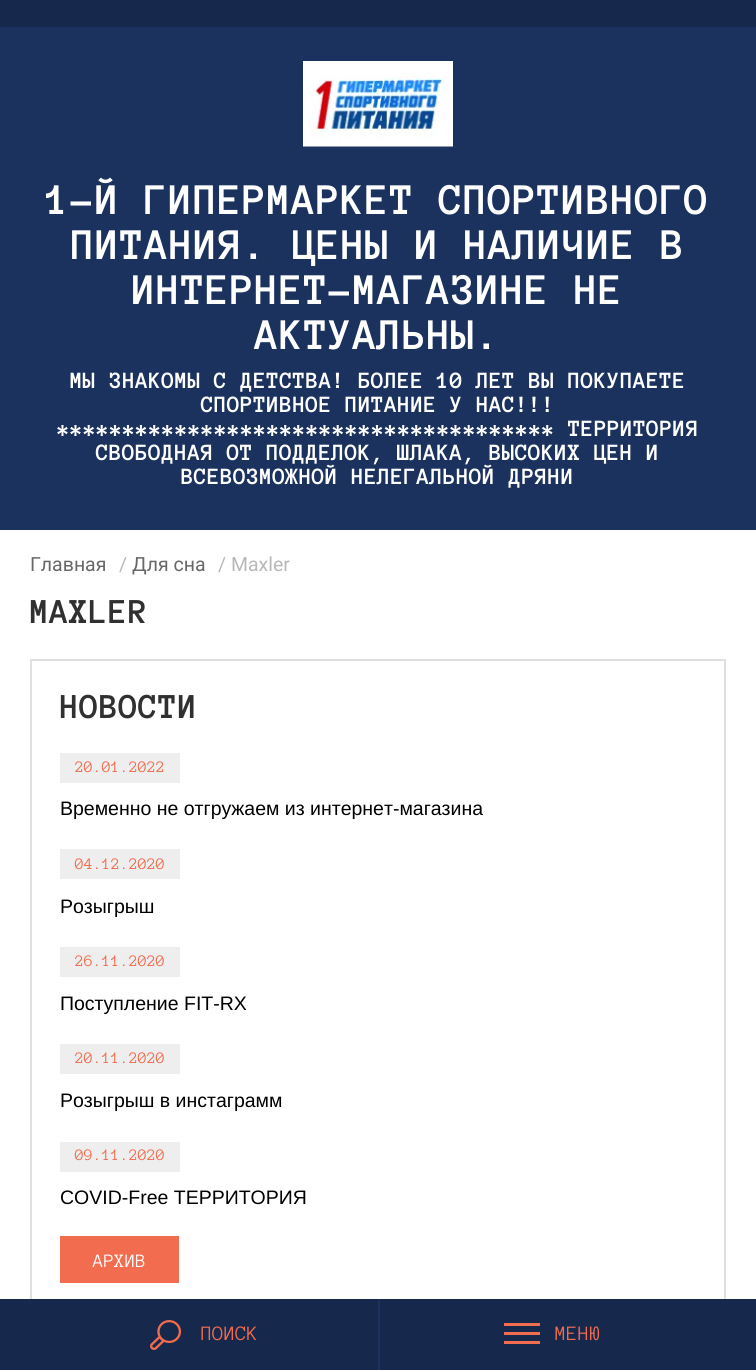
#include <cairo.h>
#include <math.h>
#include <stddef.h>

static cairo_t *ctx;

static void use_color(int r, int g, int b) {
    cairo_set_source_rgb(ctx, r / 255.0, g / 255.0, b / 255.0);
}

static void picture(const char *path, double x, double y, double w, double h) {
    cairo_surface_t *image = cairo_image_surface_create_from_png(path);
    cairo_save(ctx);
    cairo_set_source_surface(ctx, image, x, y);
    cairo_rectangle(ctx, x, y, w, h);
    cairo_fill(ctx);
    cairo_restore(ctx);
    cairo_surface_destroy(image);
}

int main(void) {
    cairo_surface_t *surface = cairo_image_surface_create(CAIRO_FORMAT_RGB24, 756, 1370);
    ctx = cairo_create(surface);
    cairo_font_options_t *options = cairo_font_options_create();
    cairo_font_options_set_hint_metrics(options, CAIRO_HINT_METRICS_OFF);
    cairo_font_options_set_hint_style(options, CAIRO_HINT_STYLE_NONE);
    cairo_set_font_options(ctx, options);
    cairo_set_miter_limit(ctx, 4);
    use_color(255, 255, 255);
    cairo_paint(ctx);
    use_color(27, 50, 95);
    cairo_rectangle(ctx, 0, 27, 756, 503);
    cairo_fill(ctx);
    use_color(22, 40, 76);
    cairo_rectangle(ctx, 0, 0, 756, 27);
    cairo_fill(ctx);
    picture("img1.png", 303, 61, 150, 86);
    cairo_select_font_face(ctx, "Anonymous Pro", CAIRO_FONT_SLANT_NORMAL, CAIRO_FONT_WEIGHT_BOLD);
    cairo_set_font_size(ctx, 45);
    use_color(255, 255, 255);
    cairo_move_to(ctx, 46, 214);
    cairo_show_text(ctx, "1-Й ГИПЕРМАРКЕТ СПОРТИВНОГО");
    cairo_move_to(ctx, 71, 259);
    cairo_show_text(ctx, "ПИТАНИЯ. ЦЕНЫ И НАЛИЧИЕ В");
    cairo_move_to(ctx, 132, 304);
    cairo_show_text(ctx, "ИНТЕРНЕТ-МАГАЗИНЕ НЕ");
    cairo_move_to(ctx, 255, 349);
    cairo_show_text(ctx, "АКТУАЛЬНЫ.");
    cairo_set_font_size(ctx, 24);
    cairo_move_to(ctx, 70, 388);
    cairo_show_text(ctx, "МЫ ЗНАКОМЫ С ДЕТСТВА! БОЛЕЕ 10 ЛЕТ ВЫ ПОКУПАЕТЕ");
    cairo_move_to(ctx, 201, 412);
    cairo_show_text(ctx, "СПОРТИВНОЕ ПИТАНИЕ У НАС!!!");
    cairo_move_to(ctx, 57, 436);
    cairo_show_text(ctx, "************************************** ТЕРРИТОРИЯ");
    cairo_move_to(ctx, 96, 460);
    cairo_show_text(ctx, "СВОБОДНАЯ ОТ ПОДДЕЛОК, ШЛАКА, ВЫСОКИХ ЦЕН И");
    cairo_move_to(ctx, 181, 484);
    cairo_show_text(ctx, "ВСЕВОЗМОЖНОЙ НЕЛЕГАЛЬНОЙ ДРЯНИ");
    cairo_select_font_face(ctx, "Roboto", CAIRO_FONT_SLANT_NORMAL, CAIRO_FONT_WEIGHT_NORMAL);
    cairo_set_font_size(ctx, 19.5);
    use_color(103, 103, 103);
    cairo_move_to(ctx, 30, 571);
    cairo_show_text(ctx, "Главная");
    use_color(184, 184, 184);
    cairo_move_to(ctx, 119, 571);
    cairo_show_text(ctx, "/");
    use_color(103, 103, 103);
    cairo_move_to(ctx, 132, 571);
    cairo_show_text(ctx, "Для сна");
    use_color(184, 184, 184);
    cairo_move_to(ctx, 218, 571);
    cairo_show_text(ctx, "/ Maxler");
    cairo_select_font_face(ctx, "Anonymous Pro", CAIRO_FONT_SLANT_NORMAL, CAIRO_FONT_WEIGHT_BOLD);
    cairo_set_font_size(ctx, 36);
    use_color(48, 48, 48);
    cairo_move_to(ctx, 30, 623);
    cairo_show_text(ctx, "MAXLER");
    cairo_rectangle(ctx, 31, 660, 694, 647);
    use_color(224, 224, 224);
    cairo_stroke(ctx);
    use_color(48, 48, 48);
    cairo_move_to(ctx, 60, 718);
    cairo_show_text(ctx, "НОВОСТИ");
    use_color(238, 238, 238);
    cairo_rectangle(ctx, 60, 753, 120, 30);
    cairo_fill(ctx);
    cairo_select_font_face(ctx, "Anonymous Pro", CAIRO_FONT_SLANT_NORMAL, CAIRO_FONT_WEIGHT_NORMAL);
    cairo_set_font_size(ctx, 16.5);
    use_color(242, 108, 79);
    cairo_move_to(ctx, 75, 772);
    cairo_show_text(ctx, "20.01.2022");
    cairo_select_font_face(ctx, "Liberation Sans", CAIRO_FONT_SLANT_NORMAL, CAIRO_FONT_WEIGHT_NORMAL);
    cairo_set_font_size(ctx, 19.5);
    use_color(0, 0, 0);
    cairo_move_to(ctx, 60, 815);
    cairo_show_text(ctx, "Временно не отгружаем из интернет-магазина");
    use_color(238, 238, 238);
    cairo_rectangle(ctx, 60, 849, 120, 30);
    cairo_fill(ctx);
    cairo_select_font_face(ctx, "Anonymous Pro", CAIRO_FONT_SLANT_NORMAL, CAIRO_FONT_WEIGHT_NORMAL);
    cairo_set_font_size(ctx, 16.5);
    use_color(242, 108, 79);
    cairo_move_to(ctx, 75, 869);
    cairo_show_text(ctx, "04.12.2020");
    cairo_select_font_face(ctx, "Liberation Sans", CAIRO_FONT_SLANT_NORMAL, CAIRO_FONT_WEIGHT_NORMAL);
    cairo_set_font_size(ctx, 19.5);
    use_color(0, 0, 0);
    cairo_move_to(ctx, 60, 913);
    cairo_show_text(ctx, "Розыгрыш");
    use_color(238, 238, 238);
    cairo_rectangle(ctx, 60, 947, 120, 30);
    cairo_fill(ctx);
    cairo_select_font_face(ctx, "Anonymous Pro", CAIRO_FONT_SLANT_NORMAL, CAIRO_FONT_WEIGHT_NORMAL);
    cairo_set_font_size(ctx, 16.5);
    use_color(242, 108, 79);
    cairo_move_to(ctx, 75, 966);
    cairo_show_text(ctx, "26.11.2020");
    cairo_select_font_face(ctx, "Liberation Sans", CAIRO_FONT_SLANT_NORMAL, CAIRO_FONT_WEIGHT_NORMAL);
    cairo_set_font_size(ctx, 19.5);
    use_color(0, 0, 0);
    cairo_move_to(ctx, 60, 1010);
    cairo_show_text(ctx, "Поступление FIT-RX");
    use_color(238, 238, 238);
    cairo_rectangle(ctx, 60, 1044, 120, 30);
    cairo_fill(ctx);
    cairo_select_font_face(ctx, "Anonymous Pro", CAIRO_FONT_SLANT_NORMAL, CAIRO_FONT_WEIGHT_NORMAL);
    cairo_set_font_size(ctx, 16.5);
    use_color(242, 108, 79);
    cairo_move_to(ctx, 75, 1063);
    cairo_show_text(ctx, "20.11.2020");
    cairo_select_font_face(ctx, "Liberation Sans", CAIRO_FONT_SLANT_NORMAL, CAIRO_FONT_WEIGHT_NORMAL);
    cairo_set_font_size(ctx, 19.5);
    use_color(0, 0, 0);
    cairo_move_to(ctx, 60, 1107);
    cairo_show_text(ctx, "Розыгрыш в инстаграмм");
    use_color(238, 238, 238);
    cairo_rectangle(ctx, 60, 1142, 120, 30);
    cairo_fill(ctx);
    cairo_select_font_face(ctx, "Anonymous Pro", CAIRO_FONT_SLANT_NORMAL, CAIRO_FONT_WEIGHT_NORMAL);
    cairo_set_font_size(ctx, 16.5);
    use_color(242, 108, 79);
    cairo_move_to(ctx, 75, 1160);
    cairo_show_text(ctx, "09.11.2020");
    cairo_select_font_face(ctx, "Liberation Sans", CAIRO_FONT_SLANT_NORMAL, CAIRO_FONT_WEIGHT_NORMAL);
    cairo_set_font_size(ctx, 19.5);
    use_color(0, 0, 0);
    cairo_move_to(ctx, 60, 1204);
    cairo_show_text(ctx, "COVID-Free ТЕРРИТОРИЯ");
    use_color(242, 108, 79);
    cairo_rectangle(ctx, 60, 1236, 119, 47);
    cairo_fill(ctx);
    cairo_select_font_face(ctx, "Anonymous Pro", CAIRO_FONT_SLANT_NORMAL, CAIRO_FONT_WEIGHT_NORMAL);
    use_color(255, 255, 255);
    cairo_move_to(ctx, 93, 1267);
    cairo_show_text(ctx, "АРХИВ");
    use_color(22, 40, 76);
    cairo_rectangle(ctx, 0, 1299, 756, 71);
    cairo_fill(ctx);
    picture("img2.png", 150, 1320, 32, 30);
    cairo_set_font_size(ctx, 21);
    use_color(242, 108, 79);
    cairo_move_to(ctx, 201, 1340);
    cairo_show_text(ctx, "ПОИСК");
    use_color(27, 50, 95);
    cairo_rectangle(ctx, 378, 1299, 2, 71);
    cairo_fill(ctx);
    use_color(242, 108, 79);
    cairo_new_path(ctx);
    cairo_move_to(ctx, 504, 1344);
    cairo_line_to(ctx, 504, 1341);
    cairo_line_to(ctx, 540, 1341);
    cairo_line_to(ctx, 540, 1344);
    cairo_close_path(ctx);
    cairo_move_to(ctx, 504, 1332);
    cairo_line_to(ctx, 540, 1332);
    cairo_line_to(ctx, 540, 1335);
    cairo_line_to(ctx, 504, 1335);
    cairo_close_path(ctx);
    cairo_move_to(ctx, 504, 1323);
    cairo_line_to(ctx, 540, 1323);
    cairo_line_to(ctx, 540, 1326);
    cairo_line_to(ctx, 504, 1326);
    cairo_close_path(ctx);
    cairo_fill(ctx);
    cairo_move_to(ctx, 555, 1340);
    cairo_show_text(ctx, "МЕНЮ");
    cairo_surface_write_to_png(surface, "result.png");
    cairo_font_options_destroy(options);
    cairo_destroy(ctx);
    cairo_surface_destroy(surface);
    return 0;
}
